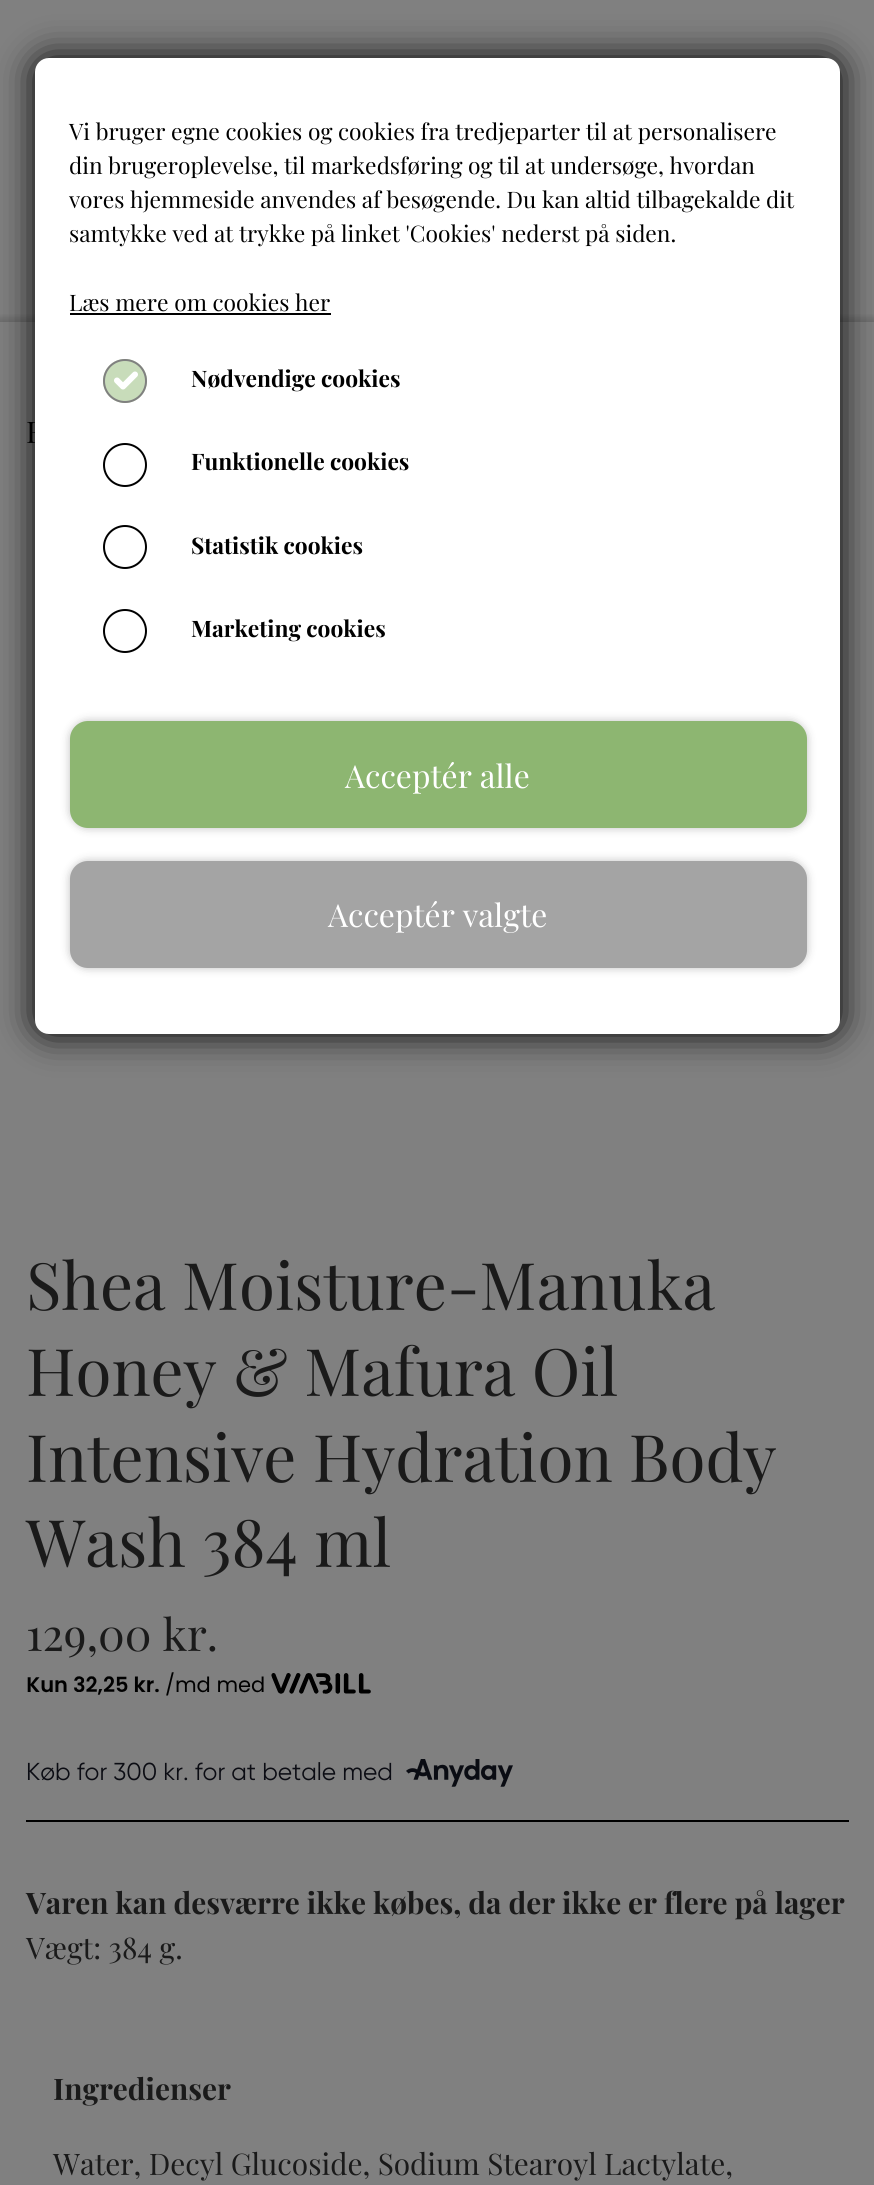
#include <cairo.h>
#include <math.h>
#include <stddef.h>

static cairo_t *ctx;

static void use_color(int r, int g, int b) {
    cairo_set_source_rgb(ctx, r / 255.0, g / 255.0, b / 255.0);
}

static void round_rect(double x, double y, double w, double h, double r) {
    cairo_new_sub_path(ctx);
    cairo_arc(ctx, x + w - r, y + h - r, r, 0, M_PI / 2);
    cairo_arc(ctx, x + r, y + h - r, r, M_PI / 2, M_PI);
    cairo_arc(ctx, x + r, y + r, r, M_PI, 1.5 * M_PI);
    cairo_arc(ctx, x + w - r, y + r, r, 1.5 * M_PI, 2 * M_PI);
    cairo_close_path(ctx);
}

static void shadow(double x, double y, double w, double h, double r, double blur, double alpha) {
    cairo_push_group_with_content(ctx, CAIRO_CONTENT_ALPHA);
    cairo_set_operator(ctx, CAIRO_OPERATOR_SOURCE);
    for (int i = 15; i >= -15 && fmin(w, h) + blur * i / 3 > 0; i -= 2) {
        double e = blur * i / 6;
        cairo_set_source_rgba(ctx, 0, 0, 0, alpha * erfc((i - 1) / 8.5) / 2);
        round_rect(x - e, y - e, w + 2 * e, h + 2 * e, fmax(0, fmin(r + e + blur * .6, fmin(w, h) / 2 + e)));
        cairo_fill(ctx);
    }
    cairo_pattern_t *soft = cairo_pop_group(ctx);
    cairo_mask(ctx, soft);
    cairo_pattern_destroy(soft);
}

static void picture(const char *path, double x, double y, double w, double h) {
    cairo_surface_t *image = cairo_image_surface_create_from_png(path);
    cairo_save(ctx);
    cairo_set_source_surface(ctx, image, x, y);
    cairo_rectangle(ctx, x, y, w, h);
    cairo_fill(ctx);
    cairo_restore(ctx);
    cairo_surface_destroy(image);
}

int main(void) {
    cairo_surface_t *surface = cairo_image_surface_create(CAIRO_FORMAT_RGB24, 874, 2185);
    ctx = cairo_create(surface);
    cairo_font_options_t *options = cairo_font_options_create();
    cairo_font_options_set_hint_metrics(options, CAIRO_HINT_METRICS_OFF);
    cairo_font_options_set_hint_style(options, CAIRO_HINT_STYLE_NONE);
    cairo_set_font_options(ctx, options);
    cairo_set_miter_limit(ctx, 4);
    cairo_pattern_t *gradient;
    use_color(128, 128, 128);
    cairo_paint(ctx);
    gradient = cairo_pattern_create_linear(438, 322, 438, 313);
    cairo_pattern_add_color_stop_rgba(gradient, 0, 0.427, 0.427, 0.427, 1);
    cairo_pattern_add_color_stop_rgba(gradient, 1, 0.502, 0.502, 0.502, 1);
    cairo_set_source(ctx, gradient);
    cairo_pattern_destroy(gradient);
    cairo_rectangle(ctx, 0, 314, 874, 8);
    cairo_fill(ctx);
    use_color(0, 0, 0);
    shadow(35, 58, 805, 976, 14, 17.5, 1);
    cairo_select_font_face(ctx, "Playfair Display", CAIRO_FONT_SLANT_NORMAL, CAIRO_FONT_WEIGHT_NORMAL);
    cairo_set_font_size(ctx, 29.75);
    use_color(0, 0, 0);
    cairo_move_to(ctx, 26, 443);
    cairo_show_text(ctx, "F");
    use_color(255, 255, 255);
    round_rect(35, 58, 805, 976, 14);
    cairo_fill(ctx);
    cairo_set_font_size(ctx, 22.75);
    use_color(0, 0, 0);
    cairo_move_to(ctx, 69, 140);
    cairo_show_text(ctx, "Vi bruger egne cookies og cookies fra tredjeparter til at personalisere");
    cairo_move_to(ctx, 69, 174);
    cairo_show_text(ctx, "din brugeroplevelse, til markedsføring og til at undersøge, hvordan");
    cairo_move_to(ctx, 69, 208);
    cairo_show_text(ctx, "vores hjemmeside anvendes af besøgende. Du kan altid tilbagekalde dit");
    cairo_move_to(ctx, 69, 242);
    cairo_show_text(ctx, "samtykke ved at trykke på linket 'Cookies' nederst på siden.");
    cairo_move_to(ctx, 69, 311);
    cairo_show_text(ctx, "Læs mere om cookies her");
    cairo_rectangle(ctx, 70, 313, 261, 2);
    cairo_fill(ctx);
    use_color(200, 220, 186);
    cairo_arc(ctx, 125, 381, 22, 0, 2 * M_PI);
    cairo_fill(ctx);
    cairo_new_path(ctx);
    cairo_move_to(ctx, 117, 380.5);
    cairo_line_to(ctx, 123, 386.5);
    cairo_line_to(ctx, 135, 374.5);
    use_color(255, 255, 255);
    cairo_set_line_width(ctx, 6);
    cairo_set_line_cap(ctx, CAIRO_LINE_CAP_ROUND);
    cairo_set_line_join(ctx, CAIRO_LINE_JOIN_ROUND);
    cairo_stroke(ctx);
    cairo_arc(ctx, 125, 381, 21, 0, 2 * M_PI);
    use_color(128, 128, 128);
    cairo_set_line_width(ctx, 2);
    cairo_set_line_cap(ctx, CAIRO_LINE_CAP_BUTT);
    cairo_set_line_join(ctx, CAIRO_LINE_JOIN_MITER);
    cairo_stroke(ctx);
    cairo_select_font_face(ctx, "Playfair Display", CAIRO_FONT_SLANT_NORMAL, CAIRO_FONT_WEIGHT_BOLD);
    use_color(0, 0, 0);
    cairo_move_to(ctx, 191, 387);
    cairo_show_text(ctx, "Nødvendige cookies");
    cairo_new_path(ctx);
    cairo_arc(ctx, 125, 465, 21, 0, 2 * M_PI);
    cairo_stroke(ctx);
    cairo_move_to(ctx, 191, 470);
    cairo_show_text(ctx, "Funktionelle cookies");
    cairo_new_path(ctx);
    cairo_arc(ctx, 125, 547, 21, 0, 2 * M_PI);
    cairo_stroke(ctx);
    cairo_move_to(ctx, 191, 554);
    cairo_show_text(ctx, "Statistik cookies");
    cairo_new_path(ctx);
    cairo_arc(ctx, 125, 631, 21, 0, 2 * M_PI);
    cairo_stroke(ctx);
    cairo_move_to(ctx, 191, 637);
    cairo_show_text(ctx, "Marketing cookies");
    use_color(0, 0, 0);
    shadow(70, 721, 737, 107, 18, 4.5, 0.25);
    use_color(141, 182, 113);
    round_rect(70, 721, 737, 107, 18);
    cairo_fill(ctx);
    cairo_select_font_face(ctx, "Playfair Display", CAIRO_FONT_SLANT_NORMAL, CAIRO_FONT_WEIGHT_NORMAL);
    cairo_set_font_size(ctx, 31.75);
    use_color(255, 255, 255);
    cairo_move_to(ctx, 345, 788);
    cairo_show_text(ctx, "Acceptér alle");
    use_color(0, 0, 0);
    shadow(70, 861, 737, 107, 18, 4.5, 0.25);
    use_color(164, 164, 164);
    round_rect(70, 861, 737, 107, 18);
    cairo_fill(ctx);
    use_color(255, 255, 255);
    cairo_move_to(ctx, 328, 927);
    cairo_show_text(ctx, "Acceptér valgte");
    cairo_set_font_size(ctx, 65.5);
    use_color(26, 26, 26);
    cairo_move_to(ctx, 26, 1310);
    cairo_show_text(ctx, "Shea Moisture-Manuka");
    cairo_move_to(ctx, 26, 1396);
    cairo_show_text(ctx, "Honey & Mafura Oil");
    cairo_move_to(ctx, 26, 1482);
    cairo_show_text(ctx, "Intensive Hydration Body");
    cairo_move_to(ctx, 26, 1567);
    cairo_show_text(ctx, "Wash 384 ml");
    cairo_set_font_size(ctx, 44.5);
    cairo_move_to(ctx, 26, 1651);
    cairo_show_text(ctx, "129,00 kr.");
    picture("img1.png", 27, 1672, 344, 24);
    cairo_select_font_face(ctx, "Gilroy", CAIRO_FONT_SLANT_NORMAL, CAIRO_FONT_WEIGHT_NORMAL);
    cairo_set_font_size(ctx, 24.5);
    use_color(11, 12, 19);
    cairo_move_to(ctx, 26, 1780);
    cairo_show_text(ctx, "Køb for 300 kr. for at betale med");
    picture("img2.png", 406, 1759, 107, 28);
    use_color(0, 0, 0);
    cairo_rectangle(ctx, 26, 1820, 823, 2);
    cairo_fill(ctx);
    cairo_select_font_face(ctx, "Playfair Display", CAIRO_FONT_SLANT_NORMAL, CAIRO_FONT_WEIGHT_BOLD);
    cairo_set_font_size(ctx, 29.75);
    use_color(26, 26, 26);
    cairo_move_to(ctx, 26, 1914);
    cairo_show_text(ctx, "Varen kan desværre ikke købes, da der ikke er flere på lager");
    cairo_select_font_face(ctx, "Playfair Display", CAIRO_FONT_SLANT_NORMAL, CAIRO_FONT_WEIGHT_NORMAL);
    cairo_move_to(ctx, 26, 1959);
    cairo_show_text(ctx, "Vægt: 384 g.");
    cairo_select_font_face(ctx, "Playfair Display", CAIRO_FONT_SLANT_NORMAL, CAIRO_FONT_WEIGHT_BOLD);
    cairo_move_to(ctx, 53, 2100);
    cairo_show_text(ctx, "Ingredienser");
    cairo_select_font_face(ctx, "Playfair Display", CAIRO_FONT_SLANT_NORMAL, CAIRO_FONT_WEIGHT_NORMAL);
    cairo_move_to(ctx, 53, 2175);
    cairo_show_text(ctx, "Water, Decyl Glucoside, Sodium Stearoyl Lactylate,");
    cairo_surface_write_to_png(surface, "result.png");
    cairo_font_options_destroy(options);
    cairo_destroy(ctx);
    cairo_surface_destroy(surface);
    return 0;
}
